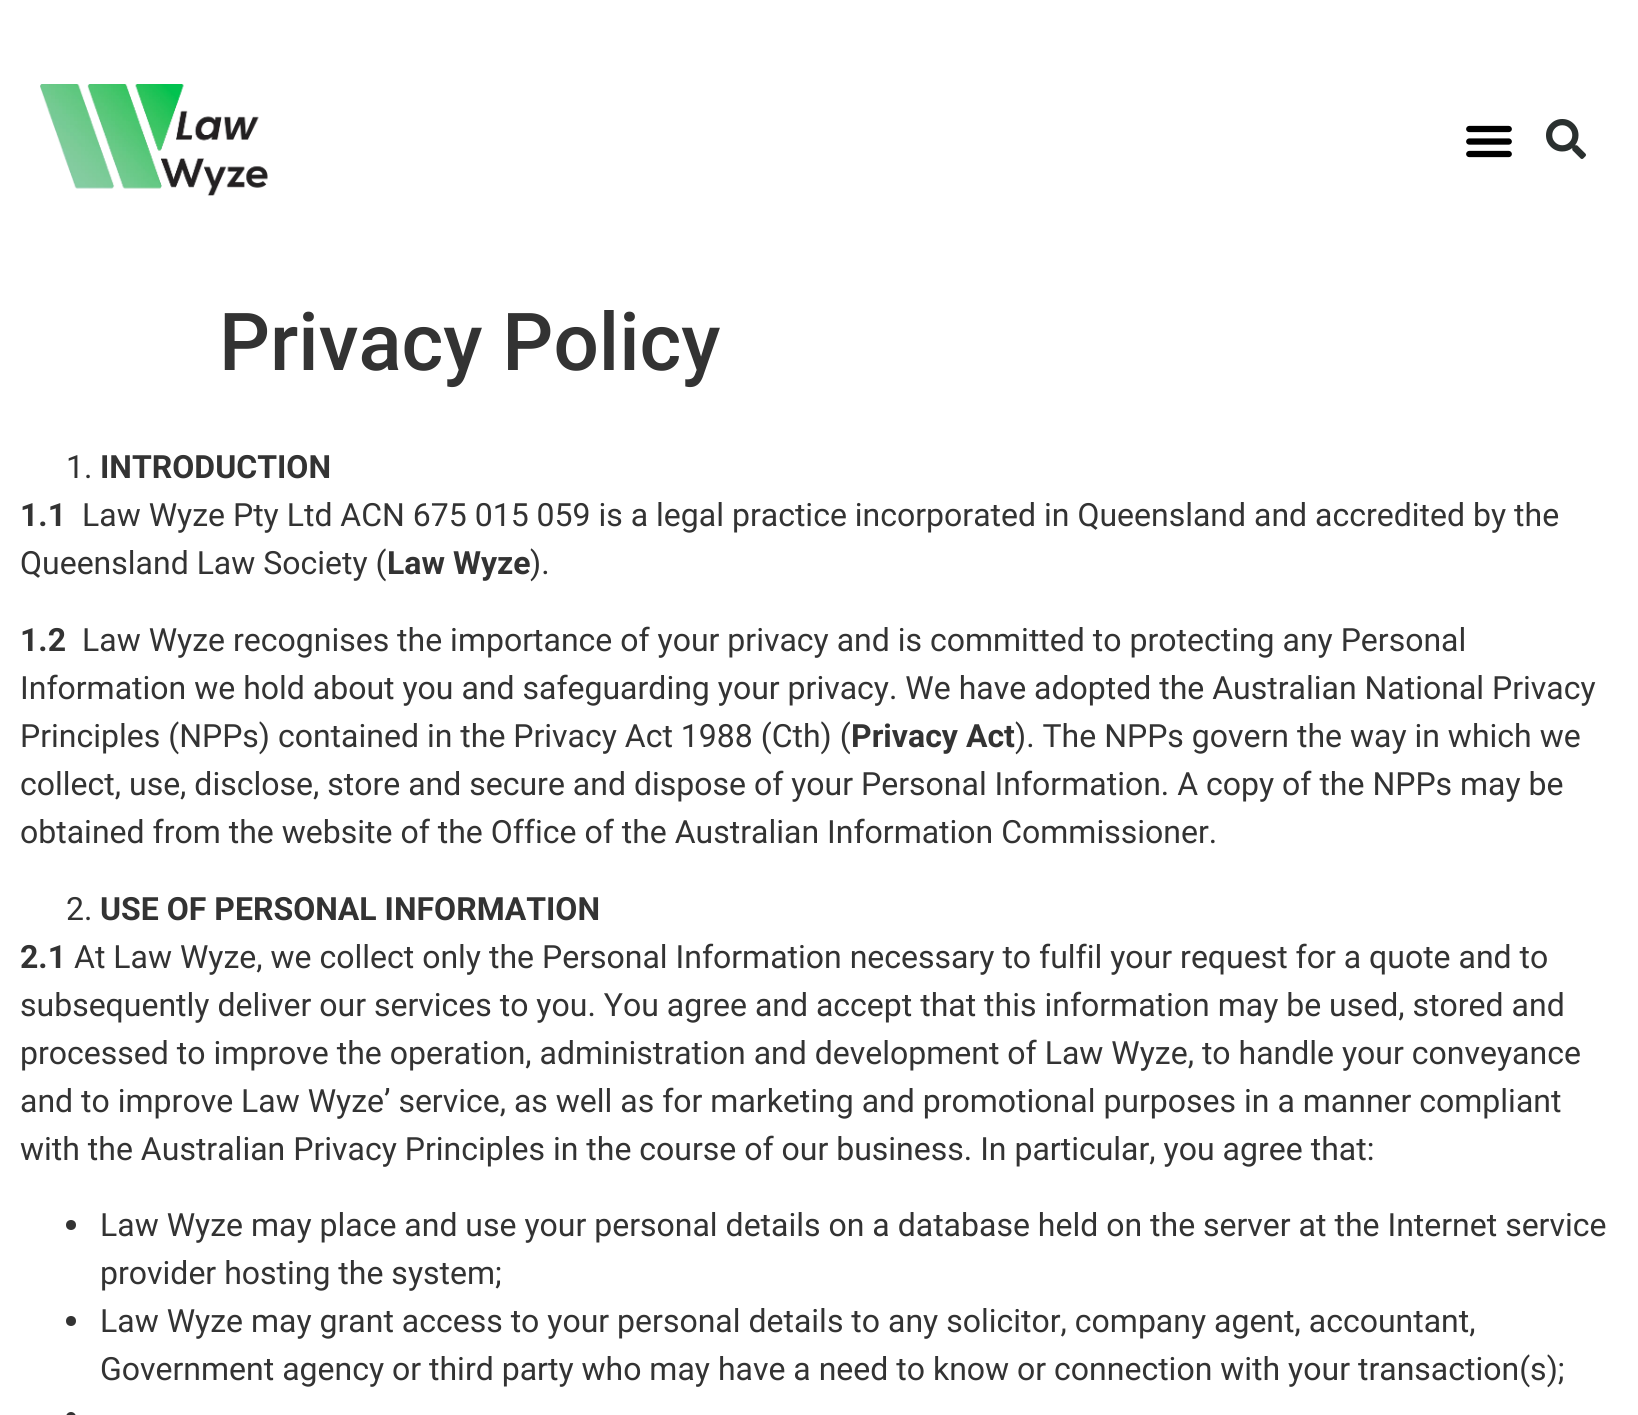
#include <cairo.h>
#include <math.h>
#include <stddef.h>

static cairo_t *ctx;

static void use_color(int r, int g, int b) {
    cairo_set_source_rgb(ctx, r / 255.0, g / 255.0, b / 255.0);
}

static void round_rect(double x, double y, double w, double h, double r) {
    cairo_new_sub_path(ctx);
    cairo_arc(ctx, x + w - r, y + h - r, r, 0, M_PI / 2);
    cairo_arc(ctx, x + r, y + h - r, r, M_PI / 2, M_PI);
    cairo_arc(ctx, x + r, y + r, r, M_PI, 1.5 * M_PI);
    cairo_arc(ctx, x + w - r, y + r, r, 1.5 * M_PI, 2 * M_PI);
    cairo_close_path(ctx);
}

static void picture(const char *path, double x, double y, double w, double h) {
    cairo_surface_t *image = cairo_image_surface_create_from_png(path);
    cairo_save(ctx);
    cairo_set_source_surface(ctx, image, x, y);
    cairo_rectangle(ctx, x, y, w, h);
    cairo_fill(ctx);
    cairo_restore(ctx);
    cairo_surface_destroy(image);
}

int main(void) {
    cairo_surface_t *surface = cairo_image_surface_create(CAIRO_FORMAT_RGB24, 1638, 1415);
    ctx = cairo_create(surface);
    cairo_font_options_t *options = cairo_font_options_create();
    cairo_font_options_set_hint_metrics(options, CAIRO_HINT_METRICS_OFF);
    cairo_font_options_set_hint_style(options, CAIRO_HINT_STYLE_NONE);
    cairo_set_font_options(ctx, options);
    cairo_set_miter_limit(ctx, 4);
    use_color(255, 255, 255);
    cairo_paint(ctx);
    picture("img1.png", 40, 84, 228, 112);
    picture("img2.png", 1466, 125, 46, 33);
    picture("img3.png", 1546, 119, 40, 40);
    cairo_select_font_face(ctx, "Roboto Medium", CAIRO_FONT_SLANT_NORMAL, CAIRO_FONT_WEIGHT_NORMAL);
    cairo_set_font_size(ctx, 80);
    use_color(51, 51, 51);
    cairo_move_to(ctx, 219, 370);
    cairo_show_text(ctx, "Privacy Policy");
    cairo_select_font_face(ctx, "Roboto", CAIRO_FONT_SLANT_NORMAL, CAIRO_FONT_WEIGHT_NORMAL);
    cairo_set_font_size(ctx, 32);
    cairo_move_to(ctx, 66, 478);
    cairo_show_text(ctx, "1.");
    cairo_select_font_face(ctx, "Roboto", CAIRO_FONT_SLANT_NORMAL, CAIRO_FONT_WEIGHT_BOLD);
    cairo_move_to(ctx, 100, 478);
    cairo_show_text(ctx, "INTRODUCTION");
    cairo_move_to(ctx, 20, 526);
    cairo_show_text(ctx, "1.1");
    cairo_select_font_face(ctx, "Roboto", CAIRO_FONT_SLANT_NORMAL, CAIRO_FONT_WEIGHT_NORMAL);
    cairo_move_to(ctx, 82, 526);
    cairo_show_text(ctx, "Law Wyze Pty Ltd ACN 675 015 059 is a legal practice incorporated in Queensland and accredited by the");
    cairo_move_to(ctx, 20, 574);
    cairo_show_text(ctx, "Queensland Law Society (");
    cairo_select_font_face(ctx, "Roboto", CAIRO_FONT_SLANT_NORMAL, CAIRO_FONT_WEIGHT_BOLD);
    cairo_move_to(ctx, 387, 574);
    cairo_show_text(ctx, "Law Wyze");
    cairo_select_font_face(ctx, "Roboto", CAIRO_FONT_SLANT_NORMAL, CAIRO_FONT_WEIGHT_NORMAL);
    cairo_move_to(ctx, 530, 574);
    cairo_show_text(ctx, ").");
    cairo_select_font_face(ctx, "Roboto", CAIRO_FONT_SLANT_NORMAL, CAIRO_FONT_WEIGHT_BOLD);
    cairo_move_to(ctx, 20, 651);
    cairo_show_text(ctx, "1.2");
    cairo_select_font_face(ctx, "Roboto", CAIRO_FONT_SLANT_NORMAL, CAIRO_FONT_WEIGHT_NORMAL);
    cairo_move_to(ctx, 82, 651);
    cairo_show_text(ctx, "Law Wyze recognises the importance of your privacy and is committed to protecting any Personal");
    cairo_move_to(ctx, 20, 699);
    cairo_show_text(ctx, "Information we hold about you and safeguarding your privacy. We have adopted the Australian National Privacy");
    cairo_move_to(ctx, 20, 747);
    cairo_show_text(ctx, "Principles (NPPs) contained in the Privacy Act 1988 (Cth) (");
    cairo_select_font_face(ctx, "Roboto", CAIRO_FONT_SLANT_NORMAL, CAIRO_FONT_WEIGHT_BOLD);
    cairo_move_to(ctx, 851, 747);
    cairo_show_text(ctx, "Privacy Act");
    cairo_select_font_face(ctx, "Roboto", CAIRO_FONT_SLANT_NORMAL, CAIRO_FONT_WEIGHT_NORMAL);
    cairo_move_to(ctx, 1015, 747);
    cairo_show_text(ctx, "). The NPPs govern the way in which we");
    cairo_move_to(ctx, 20, 795);
    cairo_show_text(ctx, "collect, use, disclose, store and secure and dispose of your Personal Information. A copy of the NPPs may be");
    cairo_move_to(ctx, 20, 843);
    cairo_show_text(ctx, "obtained from the website of the Office of the Australian Information Commissioner.");
    cairo_move_to(ctx, 66, 920);
    cairo_show_text(ctx, "2.");
    cairo_select_font_face(ctx, "Roboto", CAIRO_FONT_SLANT_NORMAL, CAIRO_FONT_WEIGHT_BOLD);
    cairo_move_to(ctx, 100, 920);
    cairo_show_text(ctx, "USE OF PERSONAL INFORMATION");
    cairo_move_to(ctx, 20, 968);
    cairo_show_text(ctx, "2.1");
    cairo_select_font_face(ctx, "Roboto", CAIRO_FONT_SLANT_NORMAL, CAIRO_FONT_WEIGHT_NORMAL);
    cairo_move_to(ctx, 74, 968);
    cairo_show_text(ctx, "At Law Wyze, we collect only the Personal Information necessary to fulfil your request for a quote and to");
    cairo_move_to(ctx, 20, 1016);
    cairo_show_text(ctx, "subsequently deliver our services to you. You agree and accept that this information may be used, stored and");
    cairo_move_to(ctx, 20, 1064);
    cairo_show_text(ctx, "processed to improve the operation, administration and development of Law Wyze, to handle your conveyance");
    cairo_move_to(ctx, 20, 1112);
    cairo_show_text(ctx, "and to improve Law Wyze’ service, as well as for marketing and promotional purposes in a manner compliant");
    cairo_move_to(ctx, 20, 1160);
    cairo_show_text(ctx, "with the Australian Privacy Principles in the course of our business. In particular, you agree that:");
    cairo_new_path(ctx);
    cairo_arc(ctx, 71, 1225, 5, 0, 2 * M_PI);
    cairo_fill(ctx);
    cairo_move_to(ctx, 100, 1236);
    cairo_show_text(ctx, "Law Wyze may place and use your personal details on a database held on the server at the Internet service");
    cairo_move_to(ctx, 100, 1284);
    cairo_show_text(ctx, "provider hosting the system;");
    cairo_new_path(ctx);
    cairo_arc(ctx, 71, 1321, 5, 0, 2 * M_PI);
    cairo_fill(ctx);
    cairo_move_to(ctx, 100, 1332);
    cairo_show_text(ctx, "Law Wyze may grant access to your personal details to any solicitor, company agent, accountant,");
    cairo_move_to(ctx, 100, 1380);
    cairo_show_text(ctx, "Government agency or third party who may have a need to know or connection with your transaction(s);");
    round_rect(66, 1412, 10, 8, 5);
    cairo_fill(ctx);
    cairo_surface_write_to_png(surface, "result.png");
    cairo_font_options_destroy(options);
    cairo_destroy(ctx);
    cairo_surface_destroy(surface);
    return 0;
}
